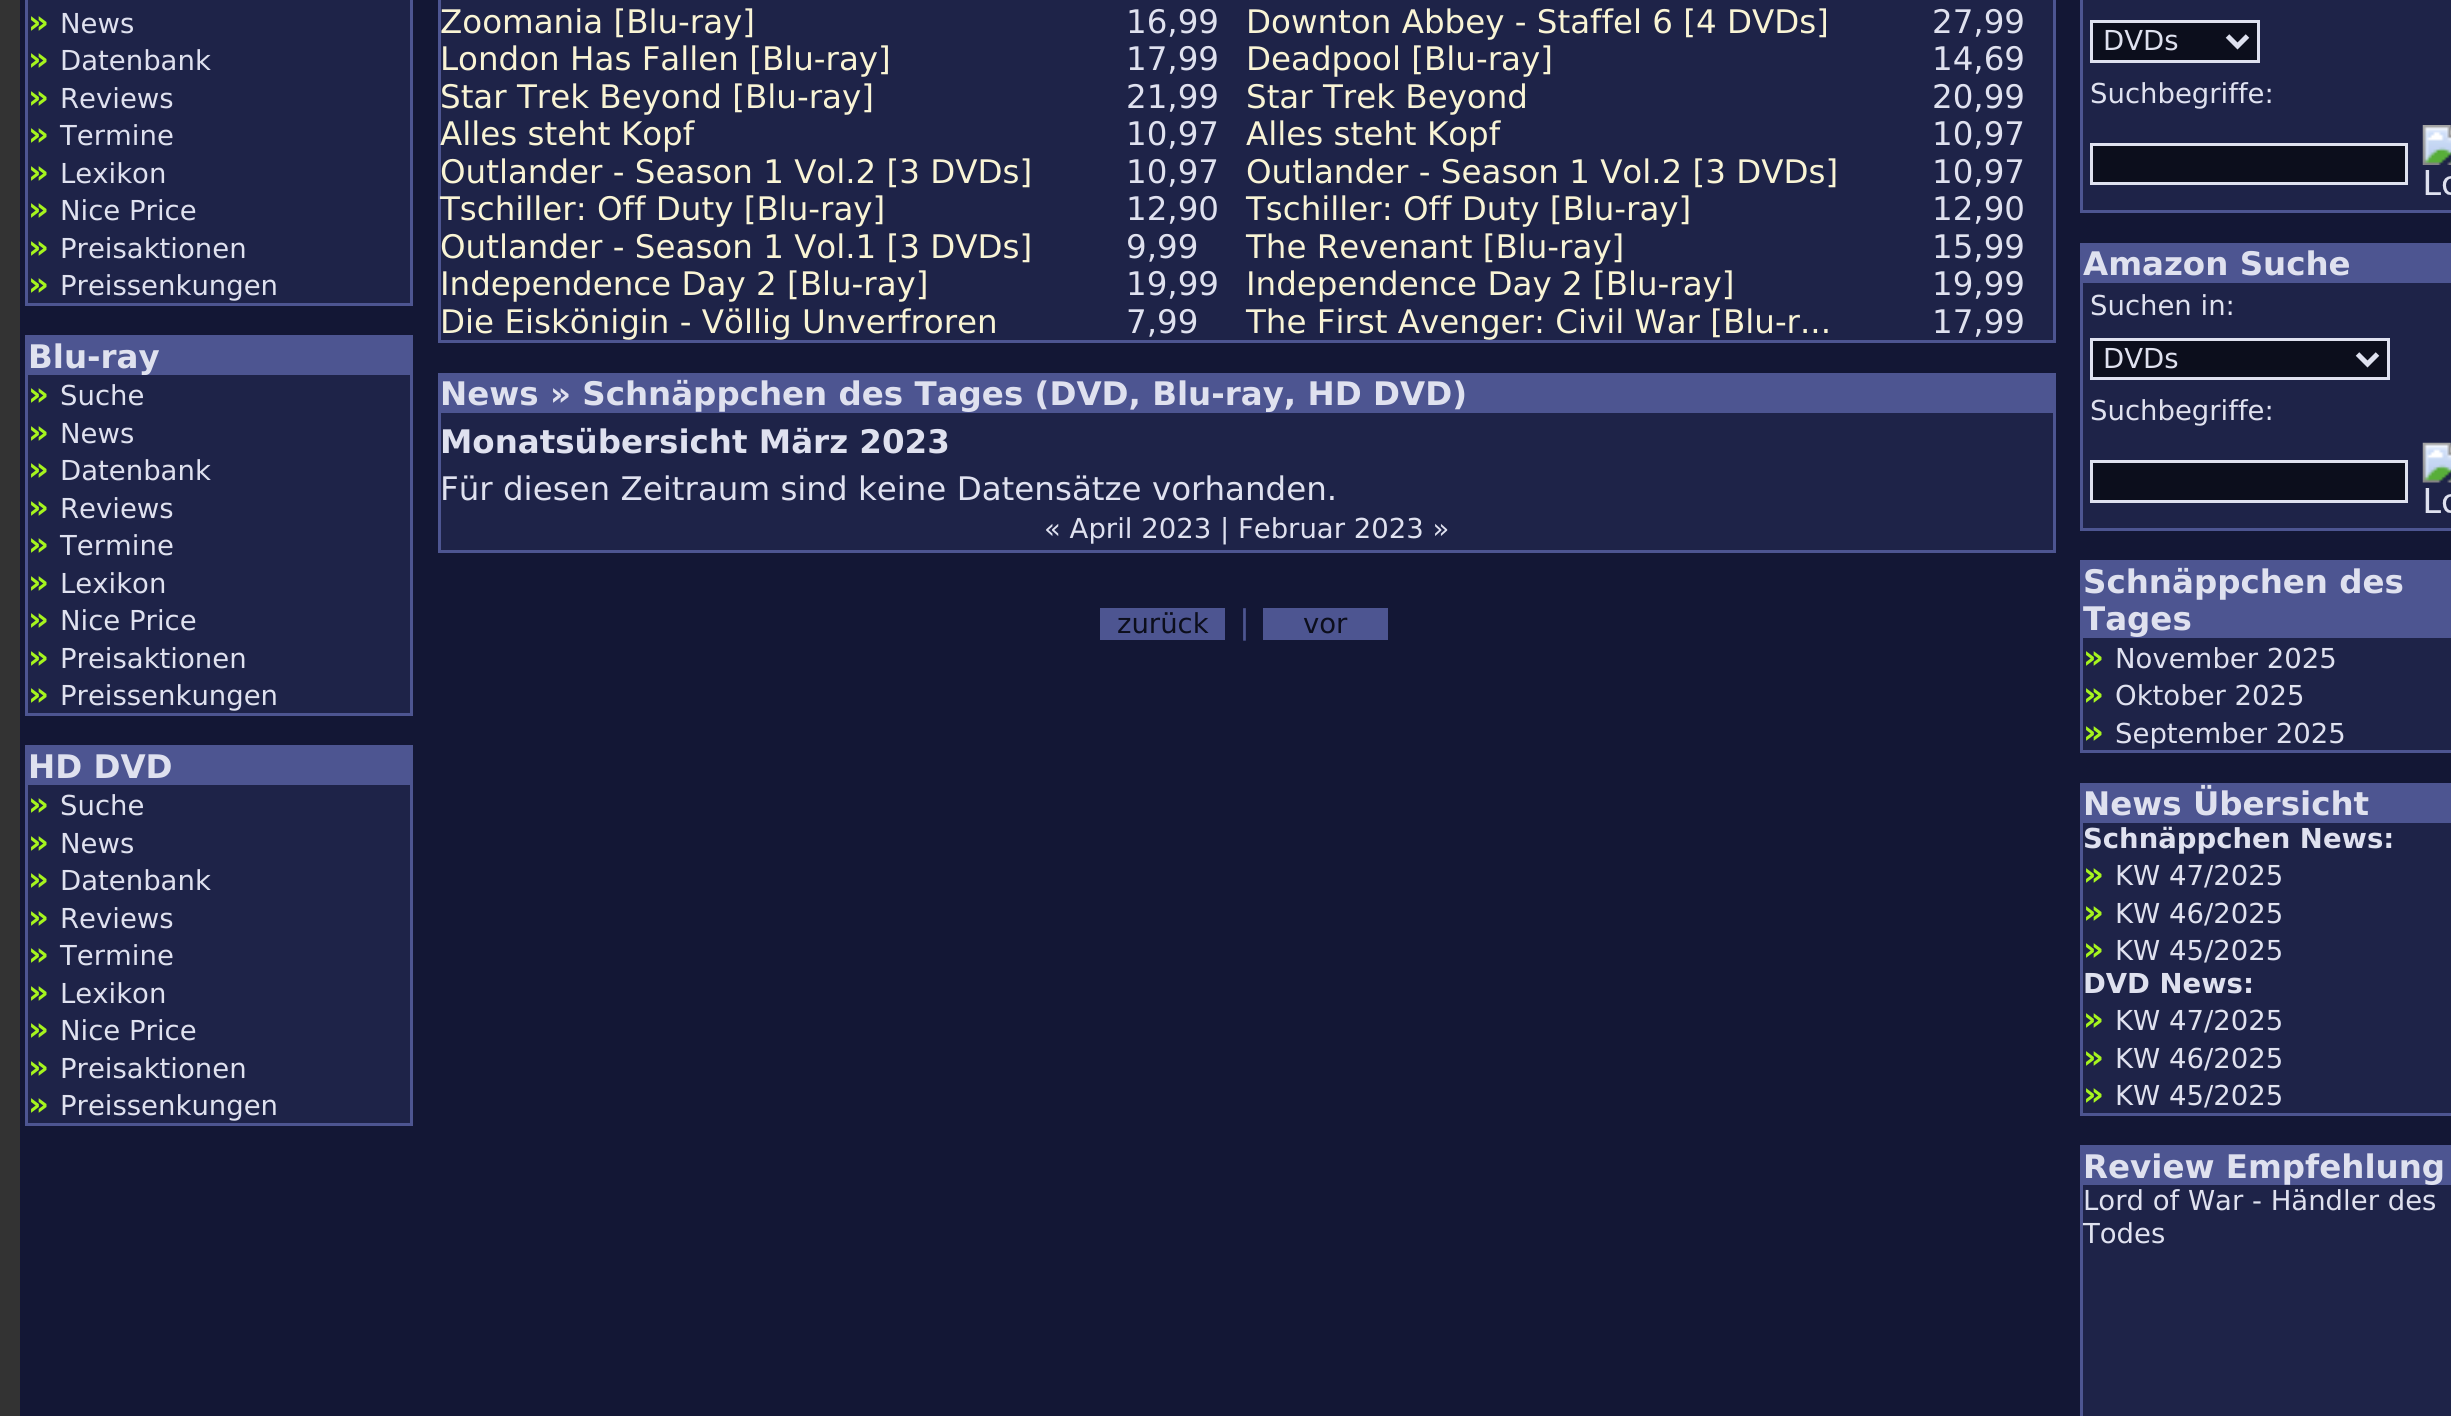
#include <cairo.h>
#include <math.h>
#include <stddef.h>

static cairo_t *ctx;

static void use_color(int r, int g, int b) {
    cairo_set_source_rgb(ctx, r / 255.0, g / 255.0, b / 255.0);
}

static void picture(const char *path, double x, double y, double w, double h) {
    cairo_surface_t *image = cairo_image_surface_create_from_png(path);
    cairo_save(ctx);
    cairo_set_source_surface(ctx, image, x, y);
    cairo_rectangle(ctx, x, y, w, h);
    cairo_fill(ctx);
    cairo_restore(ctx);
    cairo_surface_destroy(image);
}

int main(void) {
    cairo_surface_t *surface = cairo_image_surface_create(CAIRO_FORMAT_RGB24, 2451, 1416);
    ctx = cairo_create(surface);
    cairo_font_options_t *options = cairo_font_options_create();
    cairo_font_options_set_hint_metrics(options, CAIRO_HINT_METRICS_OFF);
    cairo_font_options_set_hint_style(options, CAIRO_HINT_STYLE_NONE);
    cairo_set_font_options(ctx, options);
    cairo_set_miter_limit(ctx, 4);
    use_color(51, 51, 51);
    cairo_paint(ctx);
    use_color(19, 23, 53);
    cairo_rectangle(ctx, 20, 0, 2060, 1416);
    cairo_fill(ctx);
    use_color(77, 85, 145);
    cairo_rectangle(ctx, 410, 0, 3, 305);
    cairo_fill(ctx);
    cairo_rectangle(ctx, 25, 303, 388, 3);
    cairo_fill(ctx);
    cairo_rectangle(ctx, 25, 0, 3, 305);
    cairo_fill(ctx);
    use_color(30, 35, 72);
    cairo_rectangle(ctx, 28, 0, 382, 303);
    cairo_fill(ctx);
    cairo_select_font_face(ctx, "DejaVu Sans", CAIRO_FONT_SLANT_NORMAL, CAIRO_FONT_WEIGHT_BOLD);
    cairo_set_font_size(ctx, 32.5);
    use_color(166, 244, 30);
    cairo_move_to(ctx, 28, 33);
    cairo_show_text(ctx, "»");
    cairo_select_font_face(ctx, "DejaVu Sans", CAIRO_FONT_SLANT_NORMAL, CAIRO_FONT_WEIGHT_NORMAL);
    cairo_set_font_size(ctx, 27.5);
    use_color(223, 225, 239);
    cairo_move_to(ctx, 60, 33);
    cairo_show_text(ctx, "News");
    cairo_select_font_face(ctx, "DejaVu Sans", CAIRO_FONT_SLANT_NORMAL, CAIRO_FONT_WEIGHT_BOLD);
    cairo_set_font_size(ctx, 32.5);
    use_color(166, 244, 30);
    cairo_move_to(ctx, 28, 70);
    cairo_show_text(ctx, "»");
    cairo_select_font_face(ctx, "DejaVu Sans", CAIRO_FONT_SLANT_NORMAL, CAIRO_FONT_WEIGHT_NORMAL);
    cairo_set_font_size(ctx, 27.5);
    use_color(223, 225, 239);
    cairo_move_to(ctx, 60, 70);
    cairo_show_text(ctx, "Datenbank");
    cairo_select_font_face(ctx, "DejaVu Sans", CAIRO_FONT_SLANT_NORMAL, CAIRO_FONT_WEIGHT_BOLD);
    cairo_set_font_size(ctx, 32.5);
    use_color(166, 244, 30);
    cairo_move_to(ctx, 28, 108);
    cairo_show_text(ctx, "»");
    cairo_select_font_face(ctx, "DejaVu Sans", CAIRO_FONT_SLANT_NORMAL, CAIRO_FONT_WEIGHT_NORMAL);
    cairo_set_font_size(ctx, 27.5);
    use_color(223, 225, 239);
    cairo_move_to(ctx, 60, 108);
    cairo_show_text(ctx, "Reviews");
    cairo_select_font_face(ctx, "DejaVu Sans", CAIRO_FONT_SLANT_NORMAL, CAIRO_FONT_WEIGHT_BOLD);
    cairo_set_font_size(ctx, 32.5);
    use_color(166, 244, 30);
    cairo_move_to(ctx, 28, 145);
    cairo_show_text(ctx, "»");
    cairo_select_font_face(ctx, "DejaVu Sans", CAIRO_FONT_SLANT_NORMAL, CAIRO_FONT_WEIGHT_NORMAL);
    cairo_set_font_size(ctx, 27.5);
    use_color(223, 225, 239);
    cairo_move_to(ctx, 60, 145);
    cairo_show_text(ctx, "Termine");
    cairo_select_font_face(ctx, "DejaVu Sans", CAIRO_FONT_SLANT_NORMAL, CAIRO_FONT_WEIGHT_BOLD);
    cairo_set_font_size(ctx, 32.5);
    use_color(166, 244, 30);
    cairo_move_to(ctx, 28, 183);
    cairo_show_text(ctx, "»");
    cairo_select_font_face(ctx, "DejaVu Sans", CAIRO_FONT_SLANT_NORMAL, CAIRO_FONT_WEIGHT_NORMAL);
    cairo_set_font_size(ctx, 27.5);
    use_color(223, 225, 239);
    cairo_move_to(ctx, 60, 183);
    cairo_show_text(ctx, "Lexikon");
    cairo_select_font_face(ctx, "DejaVu Sans", CAIRO_FONT_SLANT_NORMAL, CAIRO_FONT_WEIGHT_BOLD);
    cairo_set_font_size(ctx, 32.5);
    use_color(166, 244, 30);
    cairo_move_to(ctx, 28, 220);
    cairo_show_text(ctx, "»");
    cairo_select_font_face(ctx, "DejaVu Sans", CAIRO_FONT_SLANT_NORMAL, CAIRO_FONT_WEIGHT_NORMAL);
    cairo_set_font_size(ctx, 27.5);
    use_color(223, 225, 239);
    cairo_move_to(ctx, 60, 220);
    cairo_show_text(ctx, "Nice Price");
    cairo_select_font_face(ctx, "DejaVu Sans", CAIRO_FONT_SLANT_NORMAL, CAIRO_FONT_WEIGHT_BOLD);
    cairo_set_font_size(ctx, 32.5);
    use_color(166, 244, 30);
    cairo_move_to(ctx, 28, 258);
    cairo_show_text(ctx, "»");
    cairo_select_font_face(ctx, "DejaVu Sans", CAIRO_FONT_SLANT_NORMAL, CAIRO_FONT_WEIGHT_NORMAL);
    cairo_set_font_size(ctx, 27.5);
    use_color(223, 225, 239);
    cairo_move_to(ctx, 60, 258);
    cairo_show_text(ctx, "Preisaktionen");
    cairo_select_font_face(ctx, "DejaVu Sans", CAIRO_FONT_SLANT_NORMAL, CAIRO_FONT_WEIGHT_BOLD);
    cairo_set_font_size(ctx, 32.5);
    use_color(166, 244, 30);
    cairo_move_to(ctx, 28, 295);
    cairo_show_text(ctx, "»");
    cairo_select_font_face(ctx, "DejaVu Sans", CAIRO_FONT_SLANT_NORMAL, CAIRO_FONT_WEIGHT_NORMAL);
    cairo_set_font_size(ctx, 27.5);
    use_color(223, 225, 239);
    cairo_move_to(ctx, 60, 295);
    cairo_show_text(ctx, "Preissenkungen");
    use_color(77, 85, 145);
    cairo_rectangle(ctx, 25, 335, 388, 3);
    cairo_fill(ctx);
    cairo_rectangle(ctx, 410, 335, 3, 380);
    cairo_fill(ctx);
    cairo_rectangle(ctx, 25, 713, 388, 3);
    cairo_fill(ctx);
    cairo_rectangle(ctx, 25, 335, 3, 380);
    cairo_fill(ctx);
    cairo_rectangle(ctx, 28, 338, 382, 37);
    cairo_fill(ctx);
    cairo_select_font_face(ctx, "DejaVu Sans", CAIRO_FONT_SLANT_NORMAL, CAIRO_FONT_WEIGHT_BOLD);
    cairo_set_font_size(ctx, 32.5);
    use_color(223, 225, 239);
    cairo_move_to(ctx, 28, 368);
    cairo_show_text(ctx, "Blu-ray");
    use_color(30, 35, 72);
    cairo_rectangle(ctx, 28, 375, 382, 338);
    cairo_fill(ctx);
    use_color(166, 244, 30);
    cairo_move_to(ctx, 28, 405);
    cairo_show_text(ctx, "»");
    cairo_select_font_face(ctx, "DejaVu Sans", CAIRO_FONT_SLANT_NORMAL, CAIRO_FONT_WEIGHT_NORMAL);
    cairo_set_font_size(ctx, 27.5);
    use_color(223, 225, 239);
    cairo_move_to(ctx, 60, 405);
    cairo_show_text(ctx, "Suche");
    cairo_select_font_face(ctx, "DejaVu Sans", CAIRO_FONT_SLANT_NORMAL, CAIRO_FONT_WEIGHT_BOLD);
    cairo_set_font_size(ctx, 32.5);
    use_color(166, 244, 30);
    cairo_move_to(ctx, 28, 443);
    cairo_show_text(ctx, "»");
    cairo_select_font_face(ctx, "DejaVu Sans", CAIRO_FONT_SLANT_NORMAL, CAIRO_FONT_WEIGHT_NORMAL);
    cairo_set_font_size(ctx, 27.5);
    use_color(223, 225, 239);
    cairo_move_to(ctx, 60, 443);
    cairo_show_text(ctx, "News");
    cairo_select_font_face(ctx, "DejaVu Sans", CAIRO_FONT_SLANT_NORMAL, CAIRO_FONT_WEIGHT_BOLD);
    cairo_set_font_size(ctx, 32.5);
    use_color(166, 244, 30);
    cairo_move_to(ctx, 28, 480);
    cairo_show_text(ctx, "»");
    cairo_select_font_face(ctx, "DejaVu Sans", CAIRO_FONT_SLANT_NORMAL, CAIRO_FONT_WEIGHT_NORMAL);
    cairo_set_font_size(ctx, 27.5);
    use_color(223, 225, 239);
    cairo_move_to(ctx, 60, 480);
    cairo_show_text(ctx, "Datenbank");
    cairo_select_font_face(ctx, "DejaVu Sans", CAIRO_FONT_SLANT_NORMAL, CAIRO_FONT_WEIGHT_BOLD);
    cairo_set_font_size(ctx, 32.5);
    use_color(166, 244, 30);
    cairo_move_to(ctx, 28, 518);
    cairo_show_text(ctx, "»");
    cairo_select_font_face(ctx, "DejaVu Sans", CAIRO_FONT_SLANT_NORMAL, CAIRO_FONT_WEIGHT_NORMAL);
    cairo_set_font_size(ctx, 27.5);
    use_color(223, 225, 239);
    cairo_move_to(ctx, 60, 518);
    cairo_show_text(ctx, "Reviews");
    cairo_select_font_face(ctx, "DejaVu Sans", CAIRO_FONT_SLANT_NORMAL, CAIRO_FONT_WEIGHT_BOLD);
    cairo_set_font_size(ctx, 32.5);
    use_color(166, 244, 30);
    cairo_move_to(ctx, 28, 555);
    cairo_show_text(ctx, "»");
    cairo_select_font_face(ctx, "DejaVu Sans", CAIRO_FONT_SLANT_NORMAL, CAIRO_FONT_WEIGHT_NORMAL);
    cairo_set_font_size(ctx, 27.5);
    use_color(223, 225, 239);
    cairo_move_to(ctx, 60, 555);
    cairo_show_text(ctx, "Termine");
    cairo_select_font_face(ctx, "DejaVu Sans", CAIRO_FONT_SLANT_NORMAL, CAIRO_FONT_WEIGHT_BOLD);
    cairo_set_font_size(ctx, 32.5);
    use_color(166, 244, 30);
    cairo_move_to(ctx, 28, 593);
    cairo_show_text(ctx, "»");
    cairo_select_font_face(ctx, "DejaVu Sans", CAIRO_FONT_SLANT_NORMAL, CAIRO_FONT_WEIGHT_NORMAL);
    cairo_set_font_size(ctx, 27.5);
    use_color(223, 225, 239);
    cairo_move_to(ctx, 60, 593);
    cairo_show_text(ctx, "Lexikon");
    cairo_select_font_face(ctx, "DejaVu Sans", CAIRO_FONT_SLANT_NORMAL, CAIRO_FONT_WEIGHT_BOLD);
    cairo_set_font_size(ctx, 32.5);
    use_color(166, 244, 30);
    cairo_move_to(ctx, 28, 630);
    cairo_show_text(ctx, "»");
    cairo_select_font_face(ctx, "DejaVu Sans", CAIRO_FONT_SLANT_NORMAL, CAIRO_FONT_WEIGHT_NORMAL);
    cairo_set_font_size(ctx, 27.5);
    use_color(223, 225, 239);
    cairo_move_to(ctx, 60, 630);
    cairo_show_text(ctx, "Nice Price");
    cairo_select_font_face(ctx, "DejaVu Sans", CAIRO_FONT_SLANT_NORMAL, CAIRO_FONT_WEIGHT_BOLD);
    cairo_set_font_size(ctx, 32.5);
    use_color(166, 244, 30);
    cairo_move_to(ctx, 28, 668);
    cairo_show_text(ctx, "»");
    cairo_select_font_face(ctx, "DejaVu Sans", CAIRO_FONT_SLANT_NORMAL, CAIRO_FONT_WEIGHT_NORMAL);
    cairo_set_font_size(ctx, 27.5);
    use_color(223, 225, 239);
    cairo_move_to(ctx, 60, 668);
    cairo_show_text(ctx, "Preisaktionen");
    cairo_select_font_face(ctx, "DejaVu Sans", CAIRO_FONT_SLANT_NORMAL, CAIRO_FONT_WEIGHT_BOLD);
    cairo_set_font_size(ctx, 32.5);
    use_color(166, 244, 30);
    cairo_move_to(ctx, 28, 705);
    cairo_show_text(ctx, "»");
    cairo_select_font_face(ctx, "DejaVu Sans", CAIRO_FONT_SLANT_NORMAL, CAIRO_FONT_WEIGHT_NORMAL);
    cairo_set_font_size(ctx, 27.5);
    use_color(223, 225, 239);
    cairo_move_to(ctx, 60, 705);
    cairo_show_text(ctx, "Preissenkungen");
    use_color(77, 85, 145);
    cairo_rectangle(ctx, 25, 745, 388, 3);
    cairo_fill(ctx);
    cairo_rectangle(ctx, 410, 745, 3, 380);
    cairo_fill(ctx);
    cairo_rectangle(ctx, 25, 1123, 388, 3);
    cairo_fill(ctx);
    cairo_rectangle(ctx, 25, 745, 3, 380);
    cairo_fill(ctx);
    cairo_rectangle(ctx, 28, 748, 382, 37);
    cairo_fill(ctx);
    cairo_select_font_face(ctx, "DejaVu Sans", CAIRO_FONT_SLANT_NORMAL, CAIRO_FONT_WEIGHT_BOLD);
    cairo_set_font_size(ctx, 32.5);
    use_color(223, 225, 239);
    cairo_move_to(ctx, 28, 778);
    cairo_show_text(ctx, "HD DVD");
    use_color(30, 35, 72);
    cairo_rectangle(ctx, 28, 785, 382, 338);
    cairo_fill(ctx);
    use_color(166, 244, 30);
    cairo_move_to(ctx, 28, 815);
    cairo_show_text(ctx, "»");
    cairo_select_font_face(ctx, "DejaVu Sans", CAIRO_FONT_SLANT_NORMAL, CAIRO_FONT_WEIGHT_NORMAL);
    cairo_set_font_size(ctx, 27.5);
    use_color(223, 225, 239);
    cairo_move_to(ctx, 60, 815);
    cairo_show_text(ctx, "Suche");
    cairo_select_font_face(ctx, "DejaVu Sans", CAIRO_FONT_SLANT_NORMAL, CAIRO_FONT_WEIGHT_BOLD);
    cairo_set_font_size(ctx, 32.5);
    use_color(166, 244, 30);
    cairo_move_to(ctx, 28, 853);
    cairo_show_text(ctx, "»");
    cairo_select_font_face(ctx, "DejaVu Sans", CAIRO_FONT_SLANT_NORMAL, CAIRO_FONT_WEIGHT_NORMAL);
    cairo_set_font_size(ctx, 27.5);
    use_color(223, 225, 239);
    cairo_move_to(ctx, 60, 853);
    cairo_show_text(ctx, "News");
    cairo_select_font_face(ctx, "DejaVu Sans", CAIRO_FONT_SLANT_NORMAL, CAIRO_FONT_WEIGHT_BOLD);
    cairo_set_font_size(ctx, 32.5);
    use_color(166, 244, 30);
    cairo_move_to(ctx, 28, 890);
    cairo_show_text(ctx, "»");
    cairo_select_font_face(ctx, "DejaVu Sans", CAIRO_FONT_SLANT_NORMAL, CAIRO_FONT_WEIGHT_NORMAL);
    cairo_set_font_size(ctx, 27.5);
    use_color(223, 225, 239);
    cairo_move_to(ctx, 60, 890);
    cairo_show_text(ctx, "Datenbank");
    cairo_select_font_face(ctx, "DejaVu Sans", CAIRO_FONT_SLANT_NORMAL, CAIRO_FONT_WEIGHT_BOLD);
    cairo_set_font_size(ctx, 32.5);
    use_color(166, 244, 30);
    cairo_move_to(ctx, 28, 928);
    cairo_show_text(ctx, "»");
    cairo_select_font_face(ctx, "DejaVu Sans", CAIRO_FONT_SLANT_NORMAL, CAIRO_FONT_WEIGHT_NORMAL);
    cairo_set_font_size(ctx, 27.5);
    use_color(223, 225, 239);
    cairo_move_to(ctx, 60, 928);
    cairo_show_text(ctx, "Reviews");
    cairo_select_font_face(ctx, "DejaVu Sans", CAIRO_FONT_SLANT_NORMAL, CAIRO_FONT_WEIGHT_BOLD);
    cairo_set_font_size(ctx, 32.5);
    use_color(166, 244, 30);
    cairo_move_to(ctx, 28, 965);
    cairo_show_text(ctx, "»");
    cairo_select_font_face(ctx, "DejaVu Sans", CAIRO_FONT_SLANT_NORMAL, CAIRO_FONT_WEIGHT_NORMAL);
    cairo_set_font_size(ctx, 27.5);
    use_color(223, 225, 239);
    cairo_move_to(ctx, 60, 965);
    cairo_show_text(ctx, "Termine");
    cairo_select_font_face(ctx, "DejaVu Sans", CAIRO_FONT_SLANT_NORMAL, CAIRO_FONT_WEIGHT_BOLD);
    cairo_set_font_size(ctx, 32.5);
    use_color(166, 244, 30);
    cairo_move_to(ctx, 28, 1003);
    cairo_show_text(ctx, "»");
    cairo_select_font_face(ctx, "DejaVu Sans", CAIRO_FONT_SLANT_NORMAL, CAIRO_FONT_WEIGHT_NORMAL);
    cairo_set_font_size(ctx, 27.5);
    use_color(223, 225, 239);
    cairo_move_to(ctx, 60, 1003);
    cairo_show_text(ctx, "Lexikon");
    cairo_select_font_face(ctx, "DejaVu Sans", CAIRO_FONT_SLANT_NORMAL, CAIRO_FONT_WEIGHT_BOLD);
    cairo_set_font_size(ctx, 32.5);
    use_color(166, 244, 30);
    cairo_move_to(ctx, 28, 1040);
    cairo_show_text(ctx, "»");
    cairo_select_font_face(ctx, "DejaVu Sans", CAIRO_FONT_SLANT_NORMAL, CAIRO_FONT_WEIGHT_NORMAL);
    cairo_set_font_size(ctx, 27.5);
    use_color(223, 225, 239);
    cairo_move_to(ctx, 60, 1040);
    cairo_show_text(ctx, "Nice Price");
    cairo_select_font_face(ctx, "DejaVu Sans", CAIRO_FONT_SLANT_NORMAL, CAIRO_FONT_WEIGHT_BOLD);
    cairo_set_font_size(ctx, 32.5);
    use_color(166, 244, 30);
    cairo_move_to(ctx, 28, 1078);
    cairo_show_text(ctx, "»");
    cairo_select_font_face(ctx, "DejaVu Sans", CAIRO_FONT_SLANT_NORMAL, CAIRO_FONT_WEIGHT_NORMAL);
    cairo_set_font_size(ctx, 27.5);
    use_color(223, 225, 239);
    cairo_move_to(ctx, 60, 1078);
    cairo_show_text(ctx, "Preisaktionen");
    cairo_select_font_face(ctx, "DejaVu Sans", CAIRO_FONT_SLANT_NORMAL, CAIRO_FONT_WEIGHT_BOLD);
    cairo_set_font_size(ctx, 32.5);
    use_color(166, 244, 30);
    cairo_move_to(ctx, 28, 1115);
    cairo_show_text(ctx, "»");
    cairo_select_font_face(ctx, "DejaVu Sans", CAIRO_FONT_SLANT_NORMAL, CAIRO_FONT_WEIGHT_NORMAL);
    cairo_set_font_size(ctx, 27.5);
    use_color(223, 225, 239);
    cairo_move_to(ctx, 60, 1115);
    cairo_show_text(ctx, "Preissenkungen");
    use_color(77, 85, 145);
    cairo_rectangle(ctx, 2053, 0, 3, 343);
    cairo_fill(ctx);
    cairo_rectangle(ctx, 438, 340, 1617, 3);
    cairo_fill(ctx);
    use_color(30, 35, 72);
    cairo_rectangle(ctx, 440, 0, 1613, 3);
    cairo_fill(ctx);
    use_color(77, 85, 145);
    cairo_rectangle(ctx, 438, 0, 3, 343);
    cairo_fill(ctx);
    use_color(30, 35, 72);
    cairo_rectangle(ctx, 441, 3, 1612, 37);
    cairo_fill(ctx);
    cairo_set_font_size(ctx, 32.5);
    use_color(249, 244, 213);
    cairo_move_to(ctx, 440, 33);
    cairo_show_text(ctx, "Zoomania [Blu-ray]");
    use_color(223, 225, 239);
    cairo_move_to(ctx, 1126, 33);
    cairo_show_text(ctx, "16,99");
    use_color(249, 244, 213);
    cairo_move_to(ctx, 1246, 33);
    cairo_show_text(ctx, "Downton Abbey - Staffel 6 [4 DVDs]");
    use_color(223, 225, 239);
    cairo_move_to(ctx, 1932, 33);
    cairo_show_text(ctx, "27,99");
    use_color(30, 35, 72);
    cairo_rectangle(ctx, 441, 40, 1612, 38);
    cairo_fill(ctx);
    use_color(249, 244, 213);
    cairo_move_to(ctx, 440, 70);
    cairo_show_text(ctx, "London Has Fallen [Blu-ray]");
    use_color(223, 225, 239);
    cairo_move_to(ctx, 1126, 70);
    cairo_show_text(ctx, "17,99");
    use_color(249, 244, 213);
    cairo_move_to(ctx, 1246, 70);
    cairo_show_text(ctx, "Deadpool [Blu-ray]");
    use_color(223, 225, 239);
    cairo_move_to(ctx, 1932, 70);
    cairo_show_text(ctx, "14,69");
    use_color(30, 35, 72);
    cairo_rectangle(ctx, 441, 78, 1612, 37);
    cairo_fill(ctx);
    use_color(249, 244, 213);
    cairo_move_to(ctx, 440, 108);
    cairo_show_text(ctx, "Star Trek Beyond [Blu-ray]");
    use_color(223, 225, 239);
    cairo_move_to(ctx, 1126, 108);
    cairo_show_text(ctx, "21,99");
    use_color(249, 244, 213);
    cairo_move_to(ctx, 1246, 108);
    cairo_show_text(ctx, "Star Trek Beyond");
    use_color(223, 225, 239);
    cairo_move_to(ctx, 1932, 108);
    cairo_show_text(ctx, "20,99");
    use_color(30, 35, 72);
    cairo_rectangle(ctx, 441, 115, 1612, 38);
    cairo_fill(ctx);
    use_color(249, 244, 213);
    cairo_move_to(ctx, 440, 145);
    cairo_show_text(ctx, "Alles steht Kopf");
    use_color(223, 225, 239);
    cairo_move_to(ctx, 1126, 145);
    cairo_show_text(ctx, "10,97");
    use_color(249, 244, 213);
    cairo_move_to(ctx, 1246, 145);
    cairo_show_text(ctx, "Alles steht Kopf");
    use_color(223, 225, 239);
    cairo_move_to(ctx, 1932, 145);
    cairo_show_text(ctx, "10,97");
    use_color(30, 35, 72);
    cairo_rectangle(ctx, 441, 153, 1612, 37);
    cairo_fill(ctx);
    use_color(249, 244, 213);
    cairo_move_to(ctx, 440, 183);
    cairo_show_text(ctx, "Outlander - Season 1 Vol.2 [3 DVDs]");
    use_color(223, 225, 239);
    cairo_move_to(ctx, 1126, 183);
    cairo_show_text(ctx, "10,97");
    use_color(249, 244, 213);
    cairo_move_to(ctx, 1246, 183);
    cairo_show_text(ctx, "Outlander - Season 1 Vol.2 [3 DVDs]");
    use_color(223, 225, 239);
    cairo_move_to(ctx, 1932, 183);
    cairo_show_text(ctx, "10,97");
    use_color(30, 35, 72);
    cairo_rectangle(ctx, 441, 190, 1612, 38);
    cairo_fill(ctx);
    use_color(249, 244, 213);
    cairo_move_to(ctx, 440, 220);
    cairo_show_text(ctx, "Tschiller: Off Duty [Blu-ray]");
    use_color(223, 225, 239);
    cairo_move_to(ctx, 1126, 220);
    cairo_show_text(ctx, "12,90");
    use_color(249, 244, 213);
    cairo_move_to(ctx, 1246, 220);
    cairo_show_text(ctx, "Tschiller: Off Duty [Blu-ray]");
    use_color(223, 225, 239);
    cairo_move_to(ctx, 1932, 220);
    cairo_show_text(ctx, "12,90");
    use_color(30, 35, 72);
    cairo_rectangle(ctx, 441, 228, 1612, 37);
    cairo_fill(ctx);
    use_color(249, 244, 213);
    cairo_move_to(ctx, 440, 258);
    cairo_show_text(ctx, "Outlander - Season 1 Vol.1 [3 DVDs]");
    use_color(223, 225, 239);
    cairo_move_to(ctx, 1126, 258);
    cairo_show_text(ctx, "9,99");
    use_color(249, 244, 213);
    cairo_move_to(ctx, 1246, 258);
    cairo_show_text(ctx, "The Revenant [Blu-ray]");
    use_color(223, 225, 239);
    cairo_move_to(ctx, 1932, 258);
    cairo_show_text(ctx, "15,99");
    use_color(30, 35, 72);
    cairo_rectangle(ctx, 441, 265, 1612, 38);
    cairo_fill(ctx);
    use_color(249, 244, 213);
    cairo_move_to(ctx, 440, 295);
    cairo_show_text(ctx, "Independence Day 2 [Blu-ray]");
    use_color(223, 225, 239);
    cairo_move_to(ctx, 1126, 295);
    cairo_show_text(ctx, "19,99");
    use_color(249, 244, 213);
    cairo_move_to(ctx, 1246, 295);
    cairo_show_text(ctx, "Independence Day 2 [Blu-ray]");
    use_color(223, 225, 239);
    cairo_move_to(ctx, 1932, 295);
    cairo_show_text(ctx, "19,99");
    use_color(30, 35, 72);
    cairo_rectangle(ctx, 441, 303, 1612, 37);
    cairo_fill(ctx);
    use_color(249, 244, 213);
    cairo_move_to(ctx, 440, 333);
    cairo_show_text(ctx, "Die Eiskönigin - Völlig Unverfroren");
    use_color(223, 225, 239);
    cairo_move_to(ctx, 1126, 333);
    cairo_show_text(ctx, "7,99");
    use_color(249, 244, 213);
    cairo_move_to(ctx, 1246, 333);
    cairo_show_text(ctx, "The First Avenger: Civil War [Blu-r...");
    use_color(223, 225, 239);
    cairo_move_to(ctx, 1932, 333);
    cairo_show_text(ctx, "17,99");
    use_color(77, 85, 145);
    cairo_rectangle(ctx, 438, 373, 1617, 3);
    cairo_fill(ctx);
    cairo_rectangle(ctx, 2053, 373, 3, 180);
    cairo_fill(ctx);
    cairo_rectangle(ctx, 438, 550, 1617, 3);
    cairo_fill(ctx);
    cairo_rectangle(ctx, 438, 373, 3, 180);
    cairo_fill(ctx);
    cairo_rectangle(ctx, 441, 376, 1612, 37);
    cairo_fill(ctx);
    cairo_select_font_face(ctx, "DejaVu Sans", CAIRO_FONT_SLANT_NORMAL, CAIRO_FONT_WEIGHT_BOLD);
    use_color(223, 225, 239);
    cairo_move_to(ctx, 440, 405);
    cairo_show_text(ctx, "News » Schnäppchen des Tages (DVD, Blu-ray, HD DVD)");
    use_color(30, 35, 72);
    cairo_rectangle(ctx, 441, 413, 1612, 137);
    cairo_fill(ctx);
    use_color(223, 225, 239);
    cairo_move_to(ctx, 440, 453);
    cairo_show_text(ctx, "Monatsübersicht März 2023");
    cairo_select_font_face(ctx, "DejaVu Sans", CAIRO_FONT_SLANT_NORMAL, CAIRO_FONT_WEIGHT_NORMAL);
    cairo_move_to(ctx, 440, 500);
    cairo_show_text(ctx, "Für diesen Zeitraum sind keine Datensätze vorhanden.");
    cairo_set_font_size(ctx, 27.5);
    cairo_move_to(ctx, 1044, 538);
    cairo_show_text(ctx, "« April 2023 | Februar 2023 »");
    use_color(77, 85, 145);
    cairo_rectangle(ctx, 1100, 608, 125, 32);
    cairo_fill(ctx);
    use_color(12, 14, 28);
    cairo_move_to(ctx, 1117, 633);
    cairo_show_text(ctx, "zurück");
    cairo_set_font_size(ctx, 32.5);
    use_color(77, 85, 145);
    cairo_move_to(ctx, 1239, 633);
    cairo_show_text(ctx, "|");
    cairo_rectangle(ctx, 1263, 608, 125, 32);
    cairo_fill(ctx);
    cairo_set_font_size(ctx, 27.5);
    use_color(12, 14, 28);
    cairo_move_to(ctx, 1303, 633);
    cairo_show_text(ctx, "vor");
    use_color(19, 23, 53);
    cairo_rectangle(ctx, 2080, 213, 371, 932);
    cairo_fill(ctx);
    use_color(77, 85, 145);
    cairo_rectangle(ctx, 2080, 210, 371, 3);
    cairo_fill(ctx);
    cairo_rectangle(ctx, 2080, 0, 3, 213);
    cairo_fill(ctx);
    use_color(30, 35, 72);
    cairo_rectangle(ctx, 2083, 0, 368, 118);
    cairo_fill(ctx);
    use_color(12, 14, 28);
    cairo_rectangle(ctx, 2091.5, 21.5, 167, 40);
    cairo_fill_preserve(ctx);
    use_color(223, 225, 239);
    cairo_set_line_width(ctx, 3);
    cairo_stroke(ctx);
    cairo_new_path(ctx);
    cairo_move_to(ctx, 2227.5, 36);
    cairo_line_to(ctx, 2237.5, 46);
    cairo_line_to(ctx, 2247.5, 36);
    cairo_set_line_width(ctx, 5);
    cairo_stroke(ctx);
    cairo_move_to(ctx, 2103, 50);
    cairo_show_text(ctx, "DVDs");
    cairo_move_to(ctx, 2090, 103);
    cairo_show_text(ctx, "Suchbegriffe:");
    use_color(30, 35, 72);
    cairo_rectangle(ctx, 2083, 118, 368, 92);
    cairo_fill(ctx);
    use_color(12, 14, 28);
    cairo_rectangle(ctx, 2091.5, 144.5, 315, 39);
    cairo_fill_preserve(ctx);
    use_color(223, 225, 239);
    cairo_set_line_width(ctx, 3);
    cairo_stroke(ctx);
    picture("img1.png", 2422, 125, 29, 70);
    use_color(77, 85, 145);
    cairo_rectangle(ctx, 2080, 243, 371, 3);
    cairo_fill(ctx);
    cairo_rectangle(ctx, 2080, 528, 371, 3);
    cairo_fill(ctx);
    cairo_rectangle(ctx, 2080, 243, 3, 287);
    cairo_fill(ctx);
    cairo_rectangle(ctx, 2083, 246, 368, 37);
    cairo_fill(ctx);
    cairo_select_font_face(ctx, "DejaVu Sans", CAIRO_FONT_SLANT_NORMAL, CAIRO_FONT_WEIGHT_BOLD);
    cairo_set_font_size(ctx, 32.5);
    use_color(223, 225, 239);
    cairo_move_to(ctx, 2083, 275);
    cairo_show_text(ctx, "Amazon Suche");
    use_color(30, 35, 72);
    cairo_rectangle(ctx, 2083, 283, 368, 152);
    cairo_fill(ctx);
    cairo_select_font_face(ctx, "DejaVu Sans", CAIRO_FONT_SLANT_NORMAL, CAIRO_FONT_WEIGHT_NORMAL);
    cairo_set_font_size(ctx, 27.5);
    use_color(223, 225, 239);
    cairo_move_to(ctx, 2090, 315);
    cairo_show_text(ctx, "Suchen in:");
    use_color(12, 14, 28);
    cairo_rectangle(ctx, 2091.5, 339.5, 297, 39);
    cairo_fill_preserve(ctx);
    use_color(223, 225, 239);
    cairo_stroke(ctx);
    cairo_new_path(ctx);
    cairo_move_to(ctx, 2357.5, 354);
    cairo_line_to(ctx, 2367.5, 364);
    cairo_line_to(ctx, 2377.5, 354);
    cairo_set_line_width(ctx, 5);
    cairo_stroke(ctx);
    cairo_move_to(ctx, 2103, 368);
    cairo_show_text(ctx, "DVDs");
    cairo_move_to(ctx, 2090, 420);
    cairo_show_text(ctx, "Suchbegriffe:");
    use_color(30, 35, 72);
    cairo_rectangle(ctx, 2083, 435, 368, 93);
    cairo_fill(ctx);
    use_color(12, 14, 28);
    cairo_rectangle(ctx, 2091.5, 461.5, 315, 40);
    cairo_fill_preserve(ctx);
    use_color(223, 225, 239);
    cairo_set_line_width(ctx, 3);
    cairo_stroke(ctx);
    picture("img2.png", 2422, 442, 29, 71);
    use_color(77, 85, 145);
    cairo_rectangle(ctx, 2080, 560, 371, 3);
    cairo_fill(ctx);
    cairo_rectangle(ctx, 2080, 750, 371, 3);
    cairo_fill(ctx);
    cairo_rectangle(ctx, 2080, 560, 3, 193);
    cairo_fill(ctx);
    cairo_rectangle(ctx, 2083, 563, 368, 75);
    cairo_fill(ctx);
    cairo_select_font_face(ctx, "DejaVu Sans", CAIRO_FONT_SLANT_NORMAL, CAIRO_FONT_WEIGHT_BOLD);
    cairo_set_font_size(ctx, 32.5);
    use_color(223, 225, 239);
    cairo_move_to(ctx, 2083, 593);
    cairo_show_text(ctx, "Schnäppchen des");
    cairo_move_to(ctx, 2083, 630);
    cairo_show_text(ctx, "Tages");
    use_color(30, 35, 72);
    cairo_rectangle(ctx, 2083, 638, 368, 112);
    cairo_fill(ctx);
    use_color(166, 244, 30);
    cairo_move_to(ctx, 2083, 668);
    cairo_show_text(ctx, "»");
    cairo_select_font_face(ctx, "DejaVu Sans", CAIRO_FONT_SLANT_NORMAL, CAIRO_FONT_WEIGHT_NORMAL);
    cairo_set_font_size(ctx, 27.5);
    use_color(223, 225, 239);
    cairo_move_to(ctx, 2115, 668);
    cairo_show_text(ctx, "November 2025");
    cairo_select_font_face(ctx, "DejaVu Sans", CAIRO_FONT_SLANT_NORMAL, CAIRO_FONT_WEIGHT_BOLD);
    cairo_set_font_size(ctx, 32.5);
    use_color(166, 244, 30);
    cairo_move_to(ctx, 2083, 705);
    cairo_show_text(ctx, "»");
    cairo_select_font_face(ctx, "DejaVu Sans", CAIRO_FONT_SLANT_NORMAL, CAIRO_FONT_WEIGHT_NORMAL);
    cairo_set_font_size(ctx, 27.5);
    use_color(223, 225, 239);
    cairo_move_to(ctx, 2115, 705);
    cairo_show_text(ctx, "Oktober 2025");
    cairo_select_font_face(ctx, "DejaVu Sans", CAIRO_FONT_SLANT_NORMAL, CAIRO_FONT_WEIGHT_BOLD);
    cairo_set_font_size(ctx, 32.5);
    use_color(166, 244, 30);
    cairo_move_to(ctx, 2083, 743);
    cairo_show_text(ctx, "»");
    cairo_select_font_face(ctx, "DejaVu Sans", CAIRO_FONT_SLANT_NORMAL, CAIRO_FONT_WEIGHT_NORMAL);
    cairo_set_font_size(ctx, 27.5);
    use_color(223, 225, 239);
    cairo_move_to(ctx, 2115, 743);
    cairo_show_text(ctx, "September 2025");
    use_color(77, 85, 145);
    cairo_rectangle(ctx, 2080, 783, 371, 3);
    cairo_fill(ctx);
    cairo_rectangle(ctx, 2080, 1113, 371, 3);
    cairo_fill(ctx);
    cairo_rectangle(ctx, 2080, 783, 3, 332);
    cairo_fill(ctx);
    cairo_rectangle(ctx, 2083, 786, 368, 37);
    cairo_fill(ctx);
    cairo_select_font_face(ctx, "DejaVu Sans", CAIRO_FONT_SLANT_NORMAL, CAIRO_FONT_WEIGHT_BOLD);
    cairo_set_font_size(ctx, 32.5);
    use_color(223, 225, 239);
    cairo_move_to(ctx, 2083, 815);
    cairo_show_text(ctx, "News Übersicht");
    use_color(30, 35, 72);
    cairo_rectangle(ctx, 2083, 823, 368, 290);
    cairo_fill(ctx);
    cairo_set_font_size(ctx, 27.5);
    use_color(223, 225, 239);
    cairo_move_to(ctx, 2083, 848);
    cairo_show_text(ctx, "Schnäppchen News:");
    cairo_set_font_size(ctx, 32.5);
    use_color(166, 244, 30);
    cairo_move_to(ctx, 2083, 885);
    cairo_show_text(ctx, "»");
    cairo_select_font_face(ctx, "DejaVu Sans", CAIRO_FONT_SLANT_NORMAL, CAIRO_FONT_WEIGHT_NORMAL);
    cairo_set_font_size(ctx, 27.5);
    use_color(223, 225, 239);
    cairo_move_to(ctx, 2115, 885);
    cairo_show_text(ctx, "KW 47/2025");
    cairo_select_font_face(ctx, "DejaVu Sans", CAIRO_FONT_SLANT_NORMAL, CAIRO_FONT_WEIGHT_BOLD);
    cairo_set_font_size(ctx, 32.5);
    use_color(166, 244, 30);
    cairo_move_to(ctx, 2083, 923);
    cairo_show_text(ctx, "»");
    cairo_select_font_face(ctx, "DejaVu Sans", CAIRO_FONT_SLANT_NORMAL, CAIRO_FONT_WEIGHT_NORMAL);
    cairo_set_font_size(ctx, 27.5);
    use_color(223, 225, 239);
    cairo_move_to(ctx, 2115, 923);
    cairo_show_text(ctx, "KW 46/2025");
    cairo_select_font_face(ctx, "DejaVu Sans", CAIRO_FONT_SLANT_NORMAL, CAIRO_FONT_WEIGHT_BOLD);
    cairo_set_font_size(ctx, 32.5);
    use_color(166, 244, 30);
    cairo_move_to(ctx, 2083, 960);
    cairo_show_text(ctx, "»");
    cairo_select_font_face(ctx, "DejaVu Sans", CAIRO_FONT_SLANT_NORMAL, CAIRO_FONT_WEIGHT_NORMAL);
    cairo_set_font_size(ctx, 27.5);
    use_color(223, 225, 239);
    cairo_move_to(ctx, 2115, 960);
    cairo_show_text(ctx, "KW 45/2025");
    cairo_select_font_face(ctx, "DejaVu Sans", CAIRO_FONT_SLANT_NORMAL, CAIRO_FONT_WEIGHT_BOLD);
    cairo_move_to(ctx, 2083, 993);
    cairo_show_text(ctx, "DVD News:");
    cairo_set_font_size(ctx, 32.5);
    use_color(166, 244, 30);
    cairo_move_to(ctx, 2083, 1030);
    cairo_show_text(ctx, "»");
    cairo_select_font_face(ctx, "DejaVu Sans", CAIRO_FONT_SLANT_NORMAL, CAIRO_FONT_WEIGHT_NORMAL);
    cairo_set_font_size(ctx, 27.5);
    use_color(223, 225, 239);
    cairo_move_to(ctx, 2115, 1030);
    cairo_show_text(ctx, "KW 47/2025");
    cairo_select_font_face(ctx, "DejaVu Sans", CAIRO_FONT_SLANT_NORMAL, CAIRO_FONT_WEIGHT_BOLD);
    cairo_set_font_size(ctx, 32.5);
    use_color(166, 244, 30);
    cairo_move_to(ctx, 2083, 1068);
    cairo_show_text(ctx, "»");
    cairo_select_font_face(ctx, "DejaVu Sans", CAIRO_FONT_SLANT_NORMAL, CAIRO_FONT_WEIGHT_NORMAL);
    cairo_set_font_size(ctx, 27.5);
    use_color(223, 225, 239);
    cairo_move_to(ctx, 2115, 1068);
    cairo_show_text(ctx, "KW 46/2025");
    cairo_select_font_face(ctx, "DejaVu Sans", CAIRO_FONT_SLANT_NORMAL, CAIRO_FONT_WEIGHT_BOLD);
    cairo_set_font_size(ctx, 32.5);
    use_color(166, 244, 30);
    cairo_move_to(ctx, 2083, 1105);
    cairo_show_text(ctx, "»");
    cairo_select_font_face(ctx, "DejaVu Sans", CAIRO_FONT_SLANT_NORMAL, CAIRO_FONT_WEIGHT_NORMAL);
    cairo_set_font_size(ctx, 27.5);
    use_color(223, 225, 239);
    cairo_move_to(ctx, 2115, 1105);
    cairo_show_text(ctx, "KW 45/2025");
    use_color(77, 85, 145);
    cairo_rectangle(ctx, 2080, 1145, 371, 3);
    cairo_fill(ctx);
    cairo_rectangle(ctx, 2080, 1145, 3, 271);
    cairo_fill(ctx);
    cairo_rectangle(ctx, 2083, 1148, 368, 37);
    cairo_fill(ctx);
    cairo_select_font_face(ctx, "DejaVu Sans", CAIRO_FONT_SLANT_NORMAL, CAIRO_FONT_WEIGHT_BOLD);
    cairo_set_font_size(ctx, 32.5);
    use_color(223, 225, 239);
    cairo_move_to(ctx, 2083, 1178);
    cairo_show_text(ctx, "Review Empfehlung");
    use_color(30, 35, 72);
    cairo_rectangle(ctx, 2083, 1185, 368, 231);
    cairo_fill(ctx);
    cairo_select_font_face(ctx, "DejaVu Sans", CAIRO_FONT_SLANT_NORMAL, CAIRO_FONT_WEIGHT_NORMAL);
    cairo_set_font_size(ctx, 27.5);
    use_color(223, 225, 239);
    cairo_move_to(ctx, 2083, 1210);
    cairo_show_text(ctx, "Lord of War - Händler des");
    cairo_move_to(ctx, 2083, 1243);
    cairo_show_text(ctx, "Todes");
    cairo_surface_write_to_png(surface, "result.png");
    cairo_font_options_destroy(options);
    cairo_destroy(ctx);
    cairo_surface_destroy(surface);
    return 0;
}
